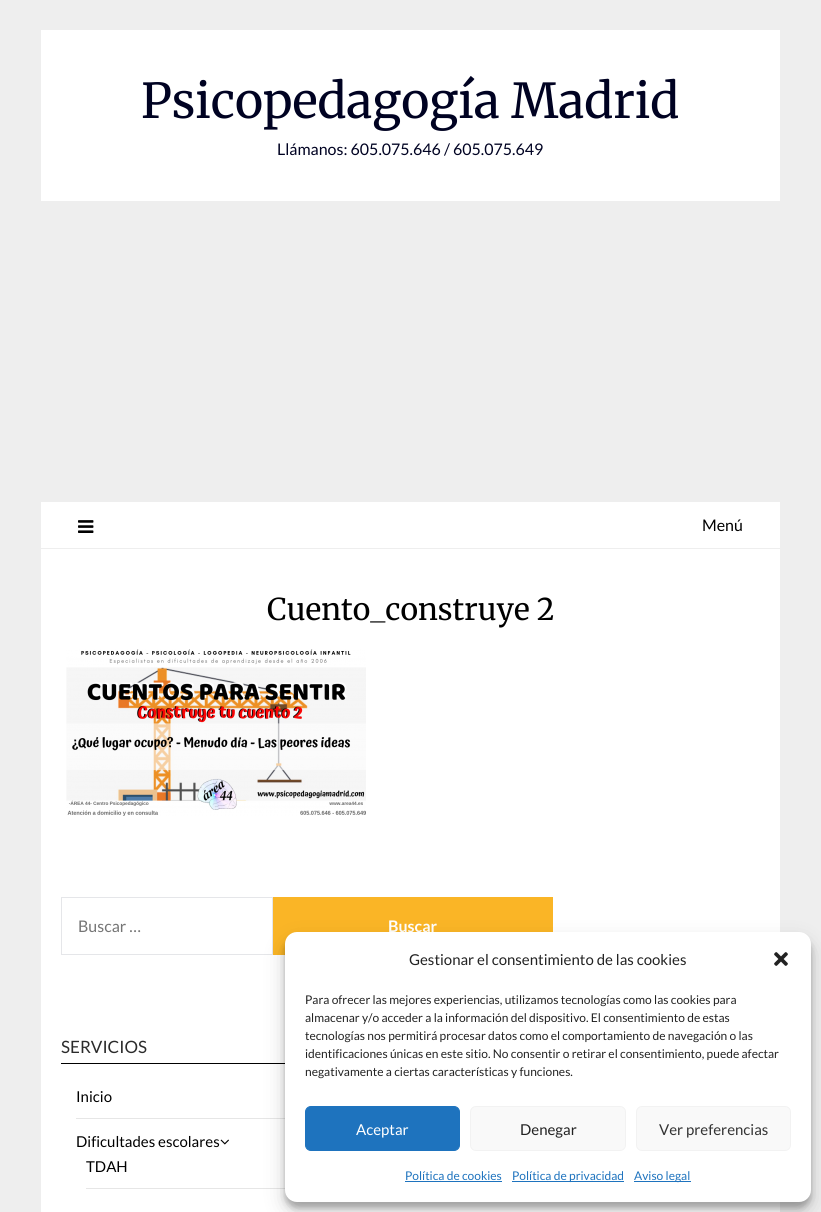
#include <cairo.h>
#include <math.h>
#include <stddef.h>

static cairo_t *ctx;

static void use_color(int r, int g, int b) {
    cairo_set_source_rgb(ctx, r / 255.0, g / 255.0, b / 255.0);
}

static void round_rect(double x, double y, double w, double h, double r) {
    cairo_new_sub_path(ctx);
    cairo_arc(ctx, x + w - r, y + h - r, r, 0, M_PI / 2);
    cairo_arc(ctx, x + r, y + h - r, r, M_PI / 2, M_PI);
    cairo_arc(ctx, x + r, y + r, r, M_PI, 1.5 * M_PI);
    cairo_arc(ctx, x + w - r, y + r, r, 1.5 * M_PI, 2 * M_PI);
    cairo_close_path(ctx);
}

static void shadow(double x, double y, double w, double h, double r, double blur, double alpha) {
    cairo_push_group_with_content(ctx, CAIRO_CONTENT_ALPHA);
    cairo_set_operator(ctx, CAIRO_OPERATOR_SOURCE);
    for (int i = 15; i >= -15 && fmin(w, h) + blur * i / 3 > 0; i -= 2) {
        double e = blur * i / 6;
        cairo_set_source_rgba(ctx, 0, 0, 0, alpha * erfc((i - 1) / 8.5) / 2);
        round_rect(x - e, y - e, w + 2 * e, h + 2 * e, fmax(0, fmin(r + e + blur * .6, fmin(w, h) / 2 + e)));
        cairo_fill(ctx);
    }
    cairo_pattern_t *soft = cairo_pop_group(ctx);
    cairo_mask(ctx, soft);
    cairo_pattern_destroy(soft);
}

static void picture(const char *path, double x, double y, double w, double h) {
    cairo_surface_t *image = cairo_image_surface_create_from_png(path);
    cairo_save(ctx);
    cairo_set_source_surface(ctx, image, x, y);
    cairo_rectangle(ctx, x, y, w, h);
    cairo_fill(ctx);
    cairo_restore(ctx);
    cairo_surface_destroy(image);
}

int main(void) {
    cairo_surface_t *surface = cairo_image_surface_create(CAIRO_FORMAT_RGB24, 821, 1212);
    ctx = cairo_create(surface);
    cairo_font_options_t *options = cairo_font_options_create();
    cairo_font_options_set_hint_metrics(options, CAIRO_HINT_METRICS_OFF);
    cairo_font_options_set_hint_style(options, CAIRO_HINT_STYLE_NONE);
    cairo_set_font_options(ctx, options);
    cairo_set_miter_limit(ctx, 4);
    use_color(238, 238, 238);
    cairo_paint(ctx);
    use_color(255, 255, 255);
    cairo_rectangle(ctx, 41, 30, 739, 171);
    cairo_fill(ctx);
    cairo_select_font_face(ctx, "Merriweather", CAIRO_FONT_SLANT_NORMAL, CAIRO_FONT_WEIGHT_NORMAL);
    cairo_set_font_size(ctx, 48);
    use_color(0, 2, 34);
    cairo_move_to(ctx, 141, 118);
    cairo_show_text(ctx, "Psicopedagogía Madrid");
    cairo_select_font_face(ctx, "Lato", CAIRO_FONT_SLANT_NORMAL, CAIRO_FONT_WEIGHT_NORMAL);
    cairo_set_font_size(ctx, 16);
    cairo_move_to(ctx, 277, 155);
    cairo_show_text(ctx, "Llámanos: 605.075.646 / 605.075.649");
    use_color(255, 255, 255);
    cairo_rectangle(ctx, 41, 502, 739, 46);
    cairo_fill(ctx);
    picture("img1.png", 78, 520, 16, 13);
    use_color(0, 0, 0);
    cairo_move_to(ctx, 702, 531);
    cairo_show_text(ctx, "Menú");
    use_color(255, 255, 255);
    cairo_rectangle(ctx, 41, 549, 739, 663);
    cairo_fill(ctx);
    cairo_select_font_face(ctx, "Merriweather", CAIRO_FONT_SLANT_NORMAL, CAIRO_FONT_WEIGHT_NORMAL);
    cairo_set_font_size(ctx, 30);
    use_color(0, 0, 0);
    cairo_move_to(ctx, 267, 620);
    cairo_show_text(ctx, "Cuento_construye 2");
    picture("img2.png", 66, 649, 300, 167);
    cairo_rectangle(ctx, 61.5, 897.5, 211, 57);
    use_color(229, 230, 233);
    cairo_set_line_width(ctx, 1);
    cairo_stroke(ctx);
    cairo_select_font_face(ctx, "Lato", CAIRO_FONT_SLANT_NORMAL, CAIRO_FONT_WEIGHT_NORMAL);
    cairo_set_font_size(ctx, 16);
    use_color(117, 117, 117);
    cairo_move_to(ctx, 78, 932);
    cairo_show_text(ctx, "Buscar …");
    use_color(250, 181, 38);
    cairo_rectangle(ctx, 273, 897, 280, 58);
    cairo_fill(ctx);
    cairo_select_font_face(ctx, "Lato", CAIRO_FONT_SLANT_NORMAL, CAIRO_FONT_WEIGHT_BOLD);
    use_color(255, 255, 255);
    cairo_move_to(ctx, 388, 932);
    cairo_show_text(ctx, "Buscar");
    use_color(0, 0, 0);
    cairo_rectangle(ctx, 61, 1063, 224, 1);
    cairo_fill(ctx);
    cairo_select_font_face(ctx, "Lato", CAIRO_FONT_SLANT_NORMAL, CAIRO_FONT_WEIGHT_NORMAL);
    cairo_set_font_size(ctx, 17);
    use_color(43, 43, 43);
    cairo_move_to(ctx, 61, 1053);
    cairo_show_text(ctx, "SERVICIOS");
    use_color(230, 230, 230);
    cairo_rectangle(ctx, 76, 1118, 209, 1);
    cairo_fill(ctx);
    cairo_set_font_size(ctx, 15);
    use_color(0, 0, 0);
    cairo_move_to(ctx, 76, 1102);
    cairo_show_text(ctx, "Inicio");
    cairo_move_to(ctx, 76, 1147);
    cairo_show_text(ctx, "Dificultades escolares");
    picture("img3.png", 220, 1139, 9, 6);
    use_color(230, 230, 230);
    cairo_rectangle(ctx, 86, 1188, 199, 1);
    cairo_fill(ctx);
    use_color(0, 0, 0);
    cairo_move_to(ctx, 86, 1172);
    cairo_show_text(ctx, "TDAH");
    use_color(0, 0, 0);
    shadow(285, 938, 526, 270, 12, 3, 0.23);
    shadow(285, 942, 526, 270, 12, 10, 0.19);
    use_color(255, 255, 255);
    round_rect(285, 932, 526, 270, 12);
    cairo_fill(ctx);
    use_color(34, 34, 34);
    cairo_move_to(ctx, 409, 965);
    cairo_show_text(ctx, "Gestionar el consentimiento de las cookies");
    picture("img4.png", 774, 952, 14, 14);
    cairo_set_font_size(ctx, 12);
    cairo_move_to(ctx, 305, 1004);
    cairo_show_text(ctx, "Para ofrecer las mejores experiencias, utilizamos tecnologías como las cookies para");
    cairo_move_to(ctx, 305, 1022);
    cairo_show_text(ctx, "almacenar y/o acceder a la información del dispositivo. El consentimiento de estas");
    cairo_move_to(ctx, 305, 1040);
    cairo_show_text(ctx, "tecnologías nos permitirá procesar datos como el comportamiento de navegación o las");
    cairo_move_to(ctx, 305, 1058);
    cairo_show_text(ctx, "identificaciones únicas en este sitio. No consentir o retirar el consentimiento, puede afectar");
    cairo_move_to(ctx, 305, 1076);
    cairo_show_text(ctx, "negativamente a ciertas características y funciones.");
    use_color(30, 115, 190);
    round_rect(305.5, 1106.5, 154, 44, 5.5);
    cairo_fill_preserve(ctx);
    cairo_stroke(ctx);
    cairo_set_font_size(ctx, 15);
    use_color(255, 255, 255);
    cairo_move_to(ctx, 356, 1135);
    cairo_show_text(ctx, "Aceptar");
    use_color(249, 249, 249);
    round_rect(470.5, 1106.5, 155, 44, 5.5);
    cairo_fill_preserve(ctx);
    use_color(242, 242, 242);
    cairo_stroke(ctx);
    use_color(34, 34, 34);
    cairo_move_to(ctx, 520, 1135);
    cairo_show_text(ctx, "Denegar");
    use_color(249, 249, 249);
    round_rect(636.5, 1106.5, 154, 44, 5.5);
    cairo_fill_preserve(ctx);
    use_color(242, 242, 242);
    cairo_stroke(ctx);
    use_color(51, 51, 51);
    cairo_move_to(ctx, 659, 1135);
    cairo_show_text(ctx, "Ver preferencias");
    cairo_set_font_size(ctx, 12);
    use_color(30, 115, 190);
    cairo_move_to(ctx, 405, 1180);
    cairo_show_text(ctx, "Política de cookies");
    cairo_rectangle(ctx, 405, 1181, 97, 1);
    cairo_fill(ctx);
    cairo_rectangle(ctx, 512, 1181, 112, 1);
    cairo_fill(ctx);
    cairo_move_to(ctx, 512, 1180);
    cairo_show_text(ctx, "Política de privacidad");
    cairo_rectangle(ctx, 634, 1181, 57, 1);
    cairo_fill(ctx);
    cairo_move_to(ctx, 634, 1180);
    cairo_show_text(ctx, "Aviso legal");
    cairo_surface_write_to_png(surface, "result.png");
    cairo_font_options_destroy(options);
    cairo_destroy(ctx);
    cairo_surface_destroy(surface);
    return 0;
}
